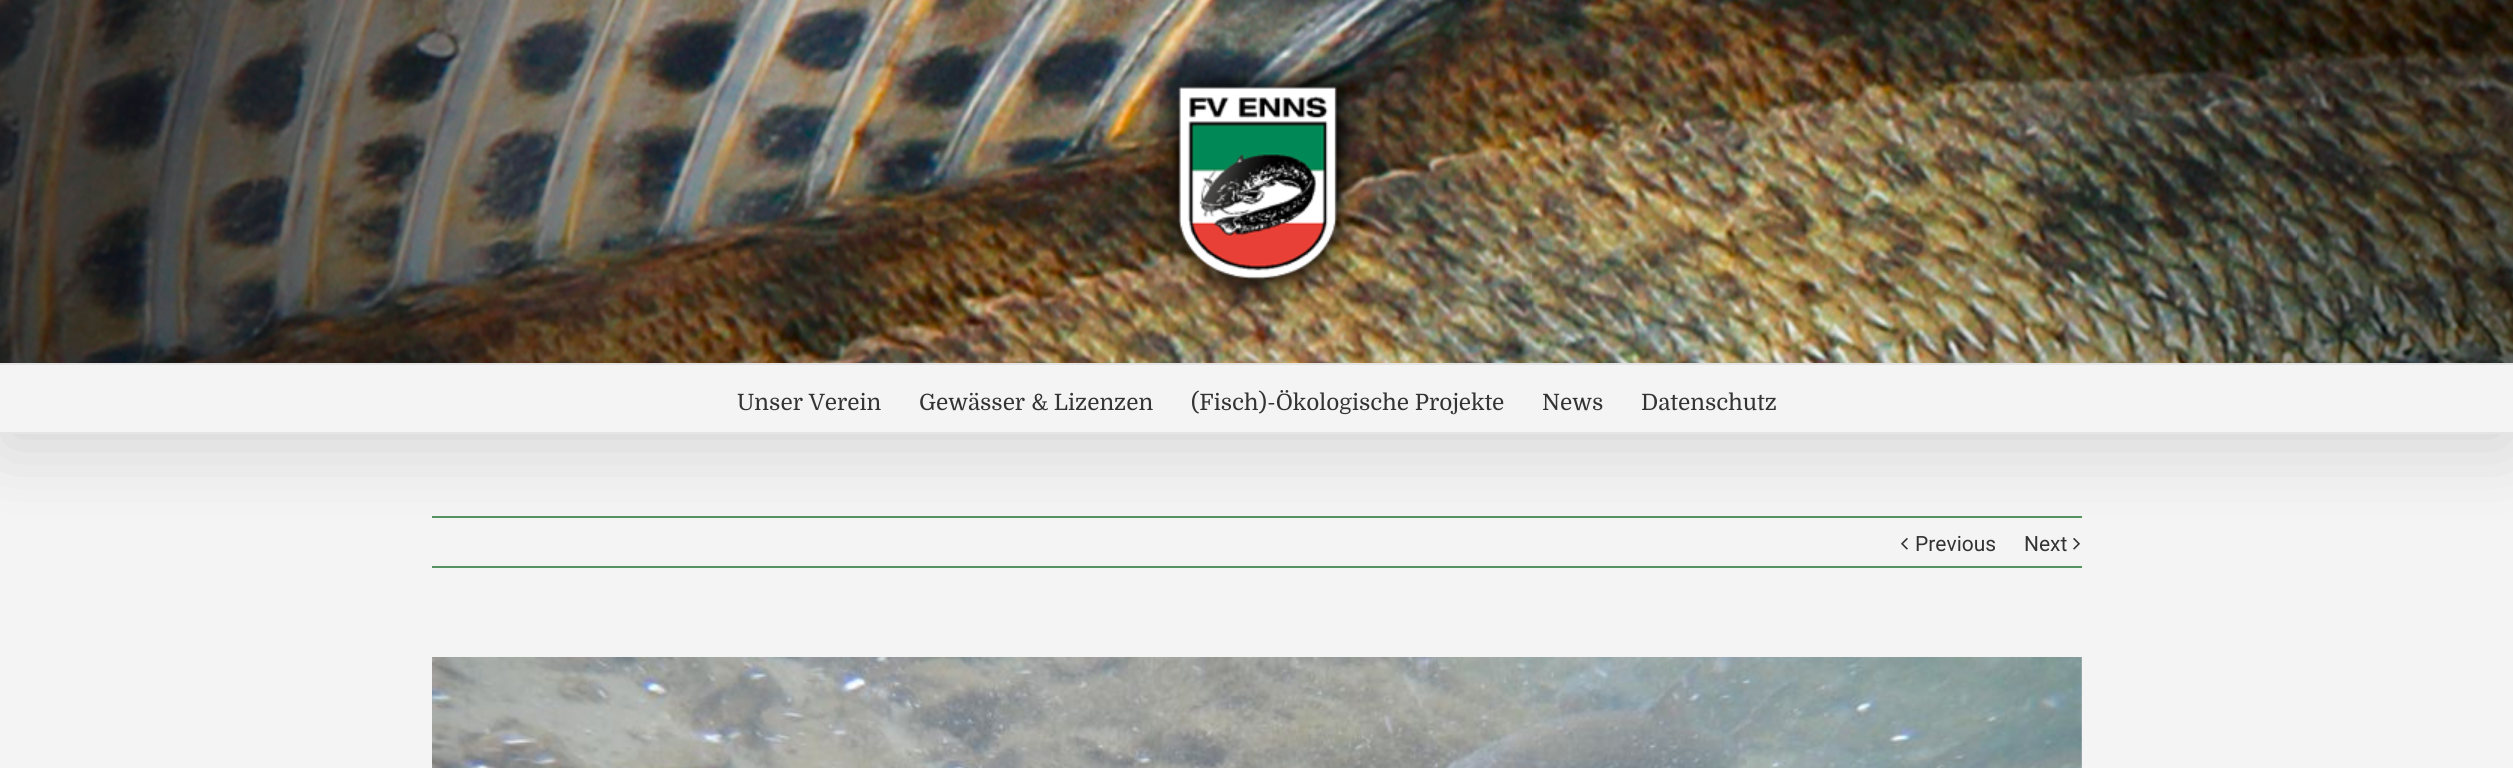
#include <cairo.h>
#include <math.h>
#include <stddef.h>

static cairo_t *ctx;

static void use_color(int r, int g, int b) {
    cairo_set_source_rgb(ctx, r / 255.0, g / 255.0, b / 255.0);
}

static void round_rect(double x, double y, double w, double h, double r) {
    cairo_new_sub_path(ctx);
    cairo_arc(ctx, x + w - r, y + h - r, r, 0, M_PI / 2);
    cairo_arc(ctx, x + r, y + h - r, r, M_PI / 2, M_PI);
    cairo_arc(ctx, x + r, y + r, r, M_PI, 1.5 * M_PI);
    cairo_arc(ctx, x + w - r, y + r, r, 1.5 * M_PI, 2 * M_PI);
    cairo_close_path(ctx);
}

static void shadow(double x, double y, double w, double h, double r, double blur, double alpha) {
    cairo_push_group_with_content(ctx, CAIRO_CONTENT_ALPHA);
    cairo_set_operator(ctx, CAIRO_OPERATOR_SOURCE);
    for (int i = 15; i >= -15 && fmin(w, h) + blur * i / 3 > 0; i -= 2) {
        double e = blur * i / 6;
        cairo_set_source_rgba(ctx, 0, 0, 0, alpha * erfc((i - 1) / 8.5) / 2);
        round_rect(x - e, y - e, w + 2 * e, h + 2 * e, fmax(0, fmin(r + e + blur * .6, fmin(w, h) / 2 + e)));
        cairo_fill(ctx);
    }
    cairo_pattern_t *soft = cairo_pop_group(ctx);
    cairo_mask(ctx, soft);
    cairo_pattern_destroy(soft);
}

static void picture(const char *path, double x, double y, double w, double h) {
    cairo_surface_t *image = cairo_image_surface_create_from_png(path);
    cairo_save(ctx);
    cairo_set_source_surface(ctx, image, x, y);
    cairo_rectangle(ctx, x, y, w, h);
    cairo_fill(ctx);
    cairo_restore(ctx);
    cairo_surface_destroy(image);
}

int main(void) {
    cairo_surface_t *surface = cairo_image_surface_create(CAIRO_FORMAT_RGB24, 2513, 768);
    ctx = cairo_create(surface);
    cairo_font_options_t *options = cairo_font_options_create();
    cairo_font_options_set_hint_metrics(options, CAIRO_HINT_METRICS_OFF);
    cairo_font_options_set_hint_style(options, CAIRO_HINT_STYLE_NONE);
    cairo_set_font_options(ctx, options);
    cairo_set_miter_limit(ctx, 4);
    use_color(244, 244, 244);
    cairo_paint(ctx);
    use_color(86, 146, 95);
    cairo_rectangle(ctx, 432, 516, 1650, 2);
    cairo_fill(ctx);
    picture("img3.png", 1901, 538, 7, 12);
    picture("img4.png", 2073, 538, 7, 12);
    use_color(0, 0, 0);
    shadow(3, 18, 2508, 428, 0, 37.5, 0.14);
    picture("img1.png", 0, 0, 2513, 363);
    use_color(229, 229, 229);
    cairo_rectangle(ctx, 0, 363, 2513, 2);
    cairo_fill(ctx);
    picture("img2.png", 1149, 57, 218, 251);
    use_color(244, 244, 244);
    cairo_rectangle(ctx, 0, 365, 2513, 67);
    cairo_fill(ctx);
    use_color(229, 229, 229);
    cairo_rectangle(ctx, 0, 432, 2513, 2);
    cairo_fill(ctx);
    cairo_select_font_face(ctx, "Domine", CAIRO_FONT_SLANT_NORMAL, CAIRO_FONT_WEIGHT_NORMAL);
    cairo_set_font_size(ctx, 22.5);
    use_color(51, 51, 51);
    cairo_move_to(ctx, 737, 410);
    cairo_show_text(ctx, "Unser Verein");
    cairo_move_to(ctx, 919, 410);
    cairo_show_text(ctx, "Gewässer & Lizenzen");
    cairo_move_to(ctx, 1191, 410);
    cairo_show_text(ctx, "(Fisch)-Ökologische Projekte");
    cairo_move_to(ctx, 1542, 410);
    cairo_show_text(ctx, "News");
    cairo_move_to(ctx, 1641, 410);
    cairo_show_text(ctx, "Datenschutz");
    use_color(86, 146, 95);
    cairo_rectangle(ctx, 432, 566, 1650, 2);
    cairo_fill(ctx);
    cairo_select_font_face(ctx, "Roboto", CAIRO_FONT_SLANT_NORMAL, CAIRO_FONT_WEIGHT_NORMAL);
    cairo_set_font_size(ctx, 21);
    use_color(51, 51, 51);
    cairo_move_to(ctx, 1915, 551);
    cairo_show_text(ctx, "Previous");
    cairo_move_to(ctx, 2024, 551);
    cairo_show_text(ctx, "Next");
    picture("img5.png", 432, 657, 1650, 111);
    cairo_surface_write_to_png(surface, "result.png");
    cairo_font_options_destroy(options);
    cairo_destroy(ctx);
    cairo_surface_destroy(surface);
    return 0;
}
